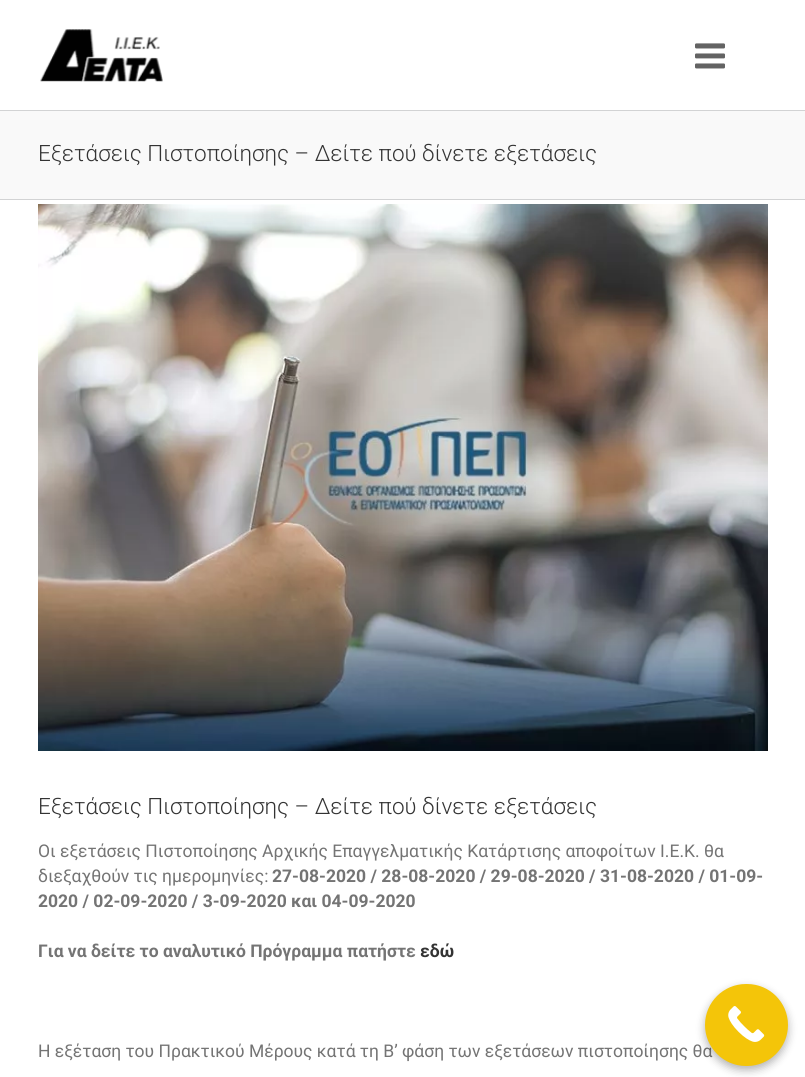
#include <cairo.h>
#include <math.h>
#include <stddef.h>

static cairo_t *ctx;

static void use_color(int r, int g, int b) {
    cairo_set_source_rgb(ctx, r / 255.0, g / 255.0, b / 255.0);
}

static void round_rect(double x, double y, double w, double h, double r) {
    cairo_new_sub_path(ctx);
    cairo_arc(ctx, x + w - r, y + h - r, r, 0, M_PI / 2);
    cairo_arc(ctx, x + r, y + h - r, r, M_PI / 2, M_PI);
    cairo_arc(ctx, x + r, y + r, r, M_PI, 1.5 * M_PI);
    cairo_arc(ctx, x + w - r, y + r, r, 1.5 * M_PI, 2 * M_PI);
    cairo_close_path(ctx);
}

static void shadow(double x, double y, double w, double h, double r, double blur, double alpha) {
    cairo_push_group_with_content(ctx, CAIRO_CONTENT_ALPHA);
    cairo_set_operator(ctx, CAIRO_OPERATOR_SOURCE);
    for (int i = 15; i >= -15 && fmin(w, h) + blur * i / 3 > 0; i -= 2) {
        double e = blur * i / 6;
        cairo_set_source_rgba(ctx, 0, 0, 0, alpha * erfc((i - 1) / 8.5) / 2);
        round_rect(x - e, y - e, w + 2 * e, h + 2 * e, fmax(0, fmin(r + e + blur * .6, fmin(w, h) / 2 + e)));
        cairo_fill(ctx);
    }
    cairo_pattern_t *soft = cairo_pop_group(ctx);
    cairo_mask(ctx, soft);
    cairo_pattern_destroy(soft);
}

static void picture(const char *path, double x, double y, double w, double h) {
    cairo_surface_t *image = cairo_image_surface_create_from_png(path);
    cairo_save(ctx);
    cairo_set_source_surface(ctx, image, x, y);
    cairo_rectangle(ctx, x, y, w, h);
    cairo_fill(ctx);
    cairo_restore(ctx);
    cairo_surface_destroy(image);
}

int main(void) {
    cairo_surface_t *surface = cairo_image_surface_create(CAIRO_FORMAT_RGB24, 805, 1077);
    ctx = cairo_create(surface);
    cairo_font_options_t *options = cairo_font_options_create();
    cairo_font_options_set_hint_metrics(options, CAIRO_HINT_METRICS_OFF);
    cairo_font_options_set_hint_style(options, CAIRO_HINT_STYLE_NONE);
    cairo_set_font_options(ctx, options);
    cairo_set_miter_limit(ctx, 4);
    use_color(255, 255, 255);
    cairo_paint(ctx);
    picture("img1.png", 40, 29, 123, 53);
    picture("img2.png", 695, 43, 30, 26);
    use_color(249, 249, 249);
    cairo_rectangle(ctx, 0, 111, 805, 88);
    cairo_fill(ctx);
    use_color(210, 211, 212);
    cairo_rectangle(ctx, 0, 110, 805, 1);
    cairo_fill(ctx);
    cairo_rectangle(ctx, 0, 199, 805, 1);
    cairo_fill(ctx);
    cairo_select_font_face(ctx, "Roboto Light", CAIRO_FONT_SLANT_NORMAL, CAIRO_FONT_WEIGHT_NORMAL);
    cairo_set_font_size(ctx, 22.5);
    use_color(51, 51, 51);
    cairo_move_to(ctx, 38, 161);
    cairo_show_text(ctx, "Εξετάσεις Πιστοποίησης – Δείτε πού δίνετε εξετάσεις");
    picture("img3.png", 38, 204, 730, 547);
    cairo_move_to(ctx, 38, 814);
    cairo_show_text(ctx, "Εξετάσεις Πιστοποίησης – Δείτε πού δίνετε εξετάσεις");
    cairo_select_font_face(ctx, "Roboto", CAIRO_FONT_SLANT_NORMAL, CAIRO_FONT_WEIGHT_NORMAL);
    cairo_set_font_size(ctx, 17.5);
    use_color(116, 116, 116);
    cairo_move_to(ctx, 38, 857);
    cairo_show_text(ctx, "Οι εξετάσεις Πιστοποίησης Αρχικής Επαγγελματικής Κατάρτισης αποφοίτων Ι.Ε.Κ. θα");
    cairo_move_to(ctx, 38, 882);
    cairo_show_text(ctx, "διεξαχθούν τις ημερομηνίες:");
    cairo_select_font_face(ctx, "Roboto", CAIRO_FONT_SLANT_NORMAL, CAIRO_FONT_WEIGHT_BOLD);
    cairo_move_to(ctx, 272, 882);
    cairo_show_text(ctx, "27-08-2020 / 28-08-2020 / 29-08-2020 / 31-08-2020 / 01-09-");
    cairo_move_to(ctx, 38, 907);
    cairo_show_text(ctx, "2020 / 02-09-2020 / 3-09-2020 και 04-09-2020");
    cairo_move_to(ctx, 38, 957);
    cairo_show_text(ctx, "Για να δείτε το αναλυτικό Πρόγραμμα πατήστε");
    use_color(51, 51, 51);
    cairo_move_to(ctx, 420, 957);
    cairo_show_text(ctx, "εδώ");
    cairo_select_font_face(ctx, "Roboto", CAIRO_FONT_SLANT_NORMAL, CAIRO_FONT_WEIGHT_NORMAL);
    use_color(116, 116, 116);
    cairo_move_to(ctx, 38, 1057);
    cairo_show_text(ctx, "Η εξέταση του Πρακτικού Μέρους κατά τη Β’ φάση των εξετάσεων πιστοποίησης θα");
    use_color(0, 0, 0);
    shadow(705, 988, 83, 82, 41, 4.5, 0.3);
    use_color(244, 197, 9);
    round_rect(705, 984, 83, 82, 41);
    cairo_fill(ctx);
    picture("img4.png", 728, 1006, 37, 36);
    cairo_surface_write_to_png(surface, "result.png");
    cairo_font_options_destroy(options);
    cairo_destroy(ctx);
    cairo_surface_destroy(surface);
    return 0;
}
